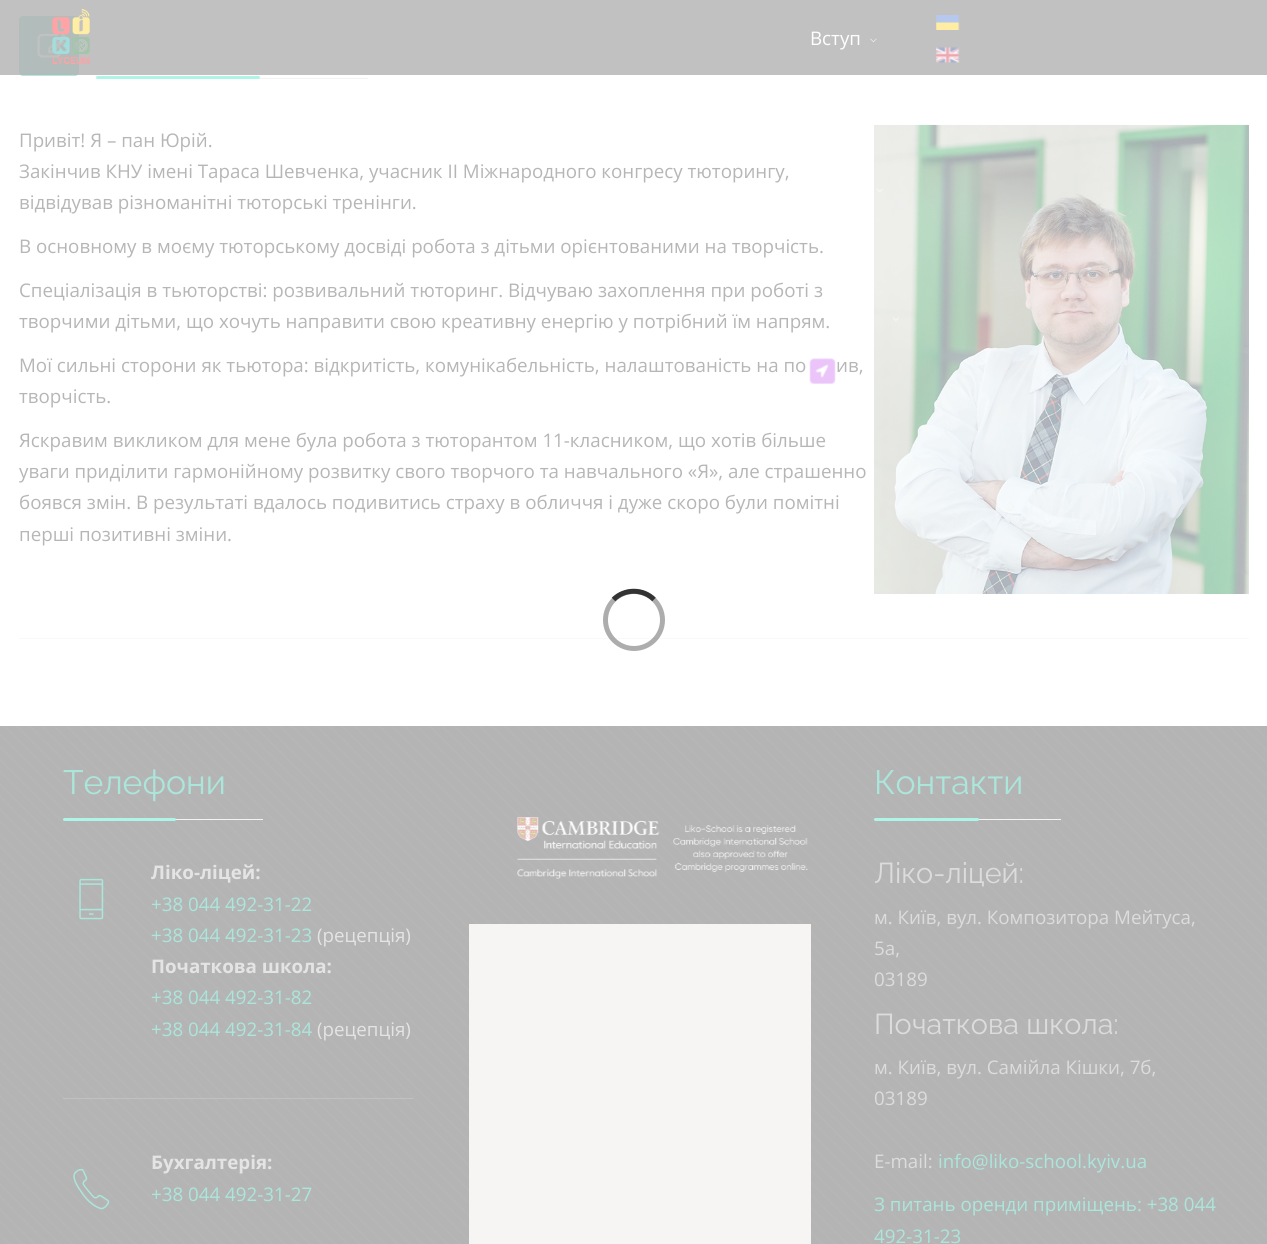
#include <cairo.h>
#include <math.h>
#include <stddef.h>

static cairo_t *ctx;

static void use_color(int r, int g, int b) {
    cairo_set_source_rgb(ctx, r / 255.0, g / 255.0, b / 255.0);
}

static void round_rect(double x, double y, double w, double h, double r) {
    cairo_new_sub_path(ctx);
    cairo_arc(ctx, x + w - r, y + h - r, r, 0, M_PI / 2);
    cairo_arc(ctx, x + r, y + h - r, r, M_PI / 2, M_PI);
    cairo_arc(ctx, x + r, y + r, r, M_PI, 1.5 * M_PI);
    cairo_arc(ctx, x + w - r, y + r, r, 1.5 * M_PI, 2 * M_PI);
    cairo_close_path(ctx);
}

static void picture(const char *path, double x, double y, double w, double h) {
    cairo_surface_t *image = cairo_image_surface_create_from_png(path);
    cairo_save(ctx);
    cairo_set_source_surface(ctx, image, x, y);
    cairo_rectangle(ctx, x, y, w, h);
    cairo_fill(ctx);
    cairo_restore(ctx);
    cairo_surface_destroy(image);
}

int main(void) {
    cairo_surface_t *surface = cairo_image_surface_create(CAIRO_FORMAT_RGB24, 1267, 1244);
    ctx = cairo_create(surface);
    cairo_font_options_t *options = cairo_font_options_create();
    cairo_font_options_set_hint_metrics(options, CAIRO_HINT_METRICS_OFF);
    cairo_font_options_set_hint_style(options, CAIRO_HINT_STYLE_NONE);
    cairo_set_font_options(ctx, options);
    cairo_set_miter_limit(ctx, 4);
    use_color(255, 255, 255);
    cairo_paint(ctx);
    use_color(179, 232, 222);
    round_rect(19, 16, 60, 60, 4);
    cairo_fill(ctx);
    picture("img8.png", 37, 33, 31, 25);
    cairo_set_source_rgba(ctx, 0.698, 0.698, 0.698, 0.8);
    cairo_rectangle(ctx, 0, 0, 1267, 75);
    cairo_fill(ctx);
    picture("img1.png", 52, 8, 38, 57);
    cairo_select_font_face(ctx, "Open Sans", CAIRO_FONT_SLANT_NORMAL, CAIRO_FONT_WEIGHT_NORMAL);
    cairo_set_font_size(ctx, 18.75);
    use_color(254, 254, 254);
    cairo_move_to(ctx, 810, 45);
    cairo_show_text(ctx, "Вступ");
    picture("img2.png", 870, 38, 7, 5);
    picture("img9.png", 874, 124, 375, 470);
    picture("img3.png", 876, 188, 7, 4);
    picture("img4.png", 893, 317, 6, 4);
    picture("img5.png", 809, 358, 27, 26);
    picture("img6.png", 936, 15, 24, 15);
    picture("img7.png", 936, 47, 24, 16);
    use_color(243, 243, 243);
    cairo_rectangle(ctx, 96, 78, 272, 1);
    cairo_fill(ctx);
    use_color(174, 245, 232);
    round_rect(96, 76, 164, 3, 1.5);
    cairo_fill(ctx);
    use_color(182, 182, 182);
    cairo_move_to(ctx, 19, 147);
    cairo_show_text(ctx, "Привіт! Я – пан Юрій.");
    cairo_move_to(ctx, 19, 178);
    cairo_show_text(ctx, "Закінчив КНУ імені Тараса Шевченка, учасник ІІ Міжнародного конгресу тюторингу,");
    cairo_move_to(ctx, 19, 209);
    cairo_show_text(ctx, "відвідував різноманітні тюторські тренінги.");
    cairo_move_to(ctx, 19, 253);
    cairo_show_text(ctx, "В основному в моєму тюторському досвіді робота з дітьми орієнтованими на творчість.");
    cairo_move_to(ctx, 19, 297);
    cairo_show_text(ctx, "Спеціалізація в тьюторстві: розвивальний тюторинг. Відчуваю захоплення при роботі з");
    cairo_move_to(ctx, 19, 328);
    cairo_show_text(ctx, "творчими дітьми, що хочуть направити свою креативну енергію у потрібний їм напрям.");
    cairo_move_to(ctx, 19, 372);
    cairo_show_text(ctx, "Мої сильні сторони як тьютора: відкритість, комунікабельність, налаштованість на по");
    cairo_move_to(ctx, 836, 372);
    cairo_show_text(ctx, "ив,");
    cairo_move_to(ctx, 19, 403);
    cairo_show_text(ctx, "творчість.");
    cairo_move_to(ctx, 19, 447);
    cairo_show_text(ctx, "Яскравим викликом для мене була робота з тюторантом 11-класником, що хотів більше");
    cairo_move_to(ctx, 19, 478);
    cairo_show_text(ctx, "уваги приділити гармонійному розвитку свого творчого та навчального «Я», але страшенно");
    cairo_move_to(ctx, 19, 509);
    cairo_show_text(ctx, "боявся змін. В результаті вдалось подивитись страху в обличчя і дуже скоро були помітні");
    cairo_move_to(ctx, 19, 541);
    cairo_show_text(ctx, "перші позитивні зміни.");
    use_color(249, 249, 249);
    cairo_rectangle(ctx, 19, 638, 1230, 1);
    cairo_fill(ctx);
    cairo_arc(ctx, 634, 620, 28.5, 0, 2 * M_PI);
    cairo_set_source_rgba(ctx, 0.2, 0.2, 0.2, 0.4);
    cairo_set_line_width(ctx, 5);
    cairo_stroke(ctx);
    cairo_new_path(ctx);
    cairo_move_to(ctx, 613.5, 599.5);
    cairo_curve_to(ctx, 624.5, 588.5, 643, 588.5, 654, 599.5);
    use_color(51, 51, 51);
    cairo_stroke(ctx);
    use_color(180, 180, 180);
    cairo_rectangle(ctx, 0, 726, 1267, 518);
    cairo_fill(ctx);
    picture("img10.png", 0, 726, 1267, 518);
    use_color(243, 243, 243);
    cairo_rectangle(ctx, 63, 819, 200, 1);
    cairo_fill(ctx);
    cairo_select_font_face(ctx, "Raleway", CAIRO_FONT_SLANT_NORMAL, CAIRO_FONT_WEIGHT_NORMAL);
    cairo_set_font_size(ctx, 33.75);
    use_color(171, 230, 219);
    cairo_move_to(ctx, 63, 794);
    cairo_show_text(ctx, "Телефони");
    use_color(174, 245, 232);
    round_rect(63, 818, 113, 3, 1.5);
    cairo_fill(ctx);
    picture("img11.png", 79, 878, 25, 42);
    cairo_select_font_face(ctx, "Open Sans", CAIRO_FONT_SLANT_NORMAL, CAIRO_FONT_WEIGHT_BOLD);
    cairo_set_font_size(ctx, 18.75);
    use_color(228, 228, 228);
    cairo_move_to(ctx, 151, 879);
    cairo_show_text(ctx, "Ліко-ліцей:");
    cairo_select_font_face(ctx, "Open Sans", CAIRO_FONT_SLANT_NORMAL, CAIRO_FONT_WEIGHT_NORMAL);
    use_color(171, 230, 219);
    cairo_move_to(ctx, 151, 911);
    cairo_show_text(ctx, "+38 044 492-31-22");
    cairo_move_to(ctx, 151, 942);
    cairo_show_text(ctx, "+38 044 492-31-23");
    use_color(228, 228, 228);
    cairo_move_to(ctx, 317, 942);
    cairo_show_text(ctx, "(рецепція)");
    cairo_select_font_face(ctx, "Open Sans", CAIRO_FONT_SLANT_NORMAL, CAIRO_FONT_WEIGHT_BOLD);
    cairo_move_to(ctx, 151, 973);
    cairo_show_text(ctx, "Початкова школа:");
    cairo_select_font_face(ctx, "Open Sans", CAIRO_FONT_SLANT_NORMAL, CAIRO_FONT_WEIGHT_NORMAL);
    use_color(171, 230, 219);
    cairo_move_to(ctx, 151, 1004);
    cairo_show_text(ctx, "+38 044 492-31-82");
    cairo_move_to(ctx, 151, 1036);
    cairo_show_text(ctx, "+38 044 492-31-84");
    use_color(228, 228, 228);
    cairo_move_to(ctx, 317, 1036);
    cairo_show_text(ctx, "(рецепція)");
    use_color(195, 192, 192);
    cairo_rectangle(ctx, 63, 1098, 350, 1);
    cairo_fill(ctx);
    picture("img12.png", 73, 1168, 37, 42);
    cairo_select_font_face(ctx, "Open Sans", CAIRO_FONT_SLANT_NORMAL, CAIRO_FONT_WEIGHT_BOLD);
    use_color(228, 228, 228);
    cairo_move_to(ctx, 151, 1169);
    cairo_show_text(ctx, "Бухгалтерія:");
    cairo_select_font_face(ctx, "Open Sans", CAIRO_FONT_SLANT_NORMAL, CAIRO_FONT_WEIGHT_NORMAL);
    use_color(171, 230, 219);
    cairo_move_to(ctx, 151, 1201);
    cairo_show_text(ctx, "+38 044 492-31-27");
    picture("img13.png", 517, 817, 143, 62);
    picture("img14.png", 673, 825, 136, 47);
    use_color(246, 245, 243);
    cairo_rectangle(ctx, 469, 924, 342, 320);
    cairo_fill(ctx);
    use_color(243, 243, 243);
    cairo_rectangle(ctx, 874, 819, 187, 1);
    cairo_fill(ctx);
    cairo_select_font_face(ctx, "Raleway", CAIRO_FONT_SLANT_NORMAL, CAIRO_FONT_WEIGHT_NORMAL);
    cairo_set_font_size(ctx, 33.75);
    use_color(171, 230, 219);
    cairo_move_to(ctx, 874, 794);
    cairo_show_text(ctx, "Контакти");
    use_color(174, 245, 232);
    round_rect(874, 818, 105, 3, 1.5);
    cairo_fill(ctx);
    cairo_set_font_size(ctx, 28.75);
    use_color(220, 220, 220);
    cairo_move_to(ctx, 874, 883);
    cairo_show_text(ctx, "Ліко-ліцей:");
    cairo_select_font_face(ctx, "Open Sans", CAIRO_FONT_SLANT_NORMAL, CAIRO_FONT_WEIGHT_NORMAL);
    cairo_set_font_size(ctx, 18.75);
    cairo_move_to(ctx, 874, 924);
    cairo_show_text(ctx, "м. Київ, вул. Композитора Мейтуса,");
    cairo_move_to(ctx, 874, 955);
    cairo_show_text(ctx, "5а,");
    cairo_move_to(ctx, 874, 986);
    cairo_show_text(ctx, "03189");
    cairo_select_font_face(ctx, "Raleway", CAIRO_FONT_SLANT_NORMAL, CAIRO_FONT_WEIGHT_NORMAL);
    cairo_set_font_size(ctx, 28.75);
    cairo_move_to(ctx, 874, 1034);
    cairo_show_text(ctx, "Початкова школа:");
    cairo_select_font_face(ctx, "Open Sans", CAIRO_FONT_SLANT_NORMAL, CAIRO_FONT_WEIGHT_NORMAL);
    cairo_set_font_size(ctx, 18.75);
    cairo_move_to(ctx, 874, 1074);
    cairo_show_text(ctx, "м. Київ, вул. Самійла Кішки, 7б,");
    cairo_move_to(ctx, 874, 1105);
    cairo_show_text(ctx, "03189");
    cairo_move_to(ctx, 874, 1168);
    cairo_show_text(ctx, "E-mail:");
    use_color(171, 230, 219);
    cairo_move_to(ctx, 938, 1168);
    cairo_show_text(ctx, "info@liko-school.kyiv.ua");
    cairo_move_to(ctx, 874, 1211);
    cairo_show_text(ctx, "З питань оренди приміщень: +38 044");
    cairo_move_to(ctx, 874, 1243);
    cairo_show_text(ctx, "492-31-23");
    cairo_surface_write_to_png(surface, "result.png");
    cairo_font_options_destroy(options);
    cairo_destroy(ctx);
    cairo_surface_destroy(surface);
    return 0;
}
